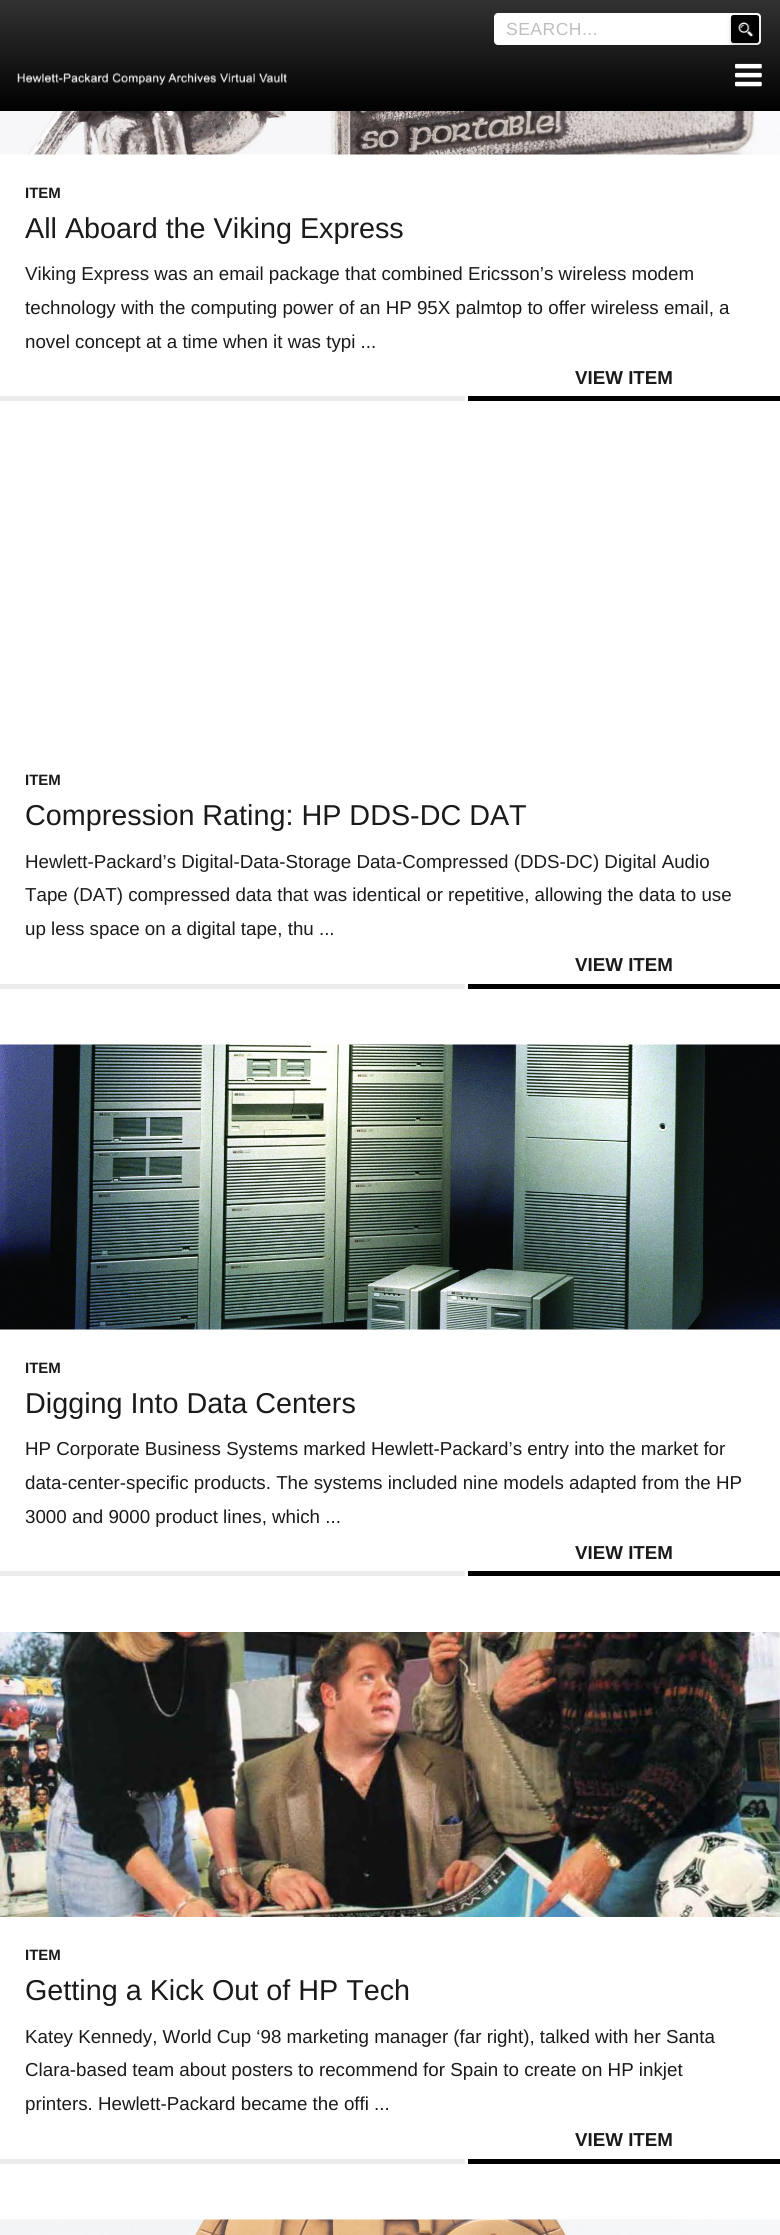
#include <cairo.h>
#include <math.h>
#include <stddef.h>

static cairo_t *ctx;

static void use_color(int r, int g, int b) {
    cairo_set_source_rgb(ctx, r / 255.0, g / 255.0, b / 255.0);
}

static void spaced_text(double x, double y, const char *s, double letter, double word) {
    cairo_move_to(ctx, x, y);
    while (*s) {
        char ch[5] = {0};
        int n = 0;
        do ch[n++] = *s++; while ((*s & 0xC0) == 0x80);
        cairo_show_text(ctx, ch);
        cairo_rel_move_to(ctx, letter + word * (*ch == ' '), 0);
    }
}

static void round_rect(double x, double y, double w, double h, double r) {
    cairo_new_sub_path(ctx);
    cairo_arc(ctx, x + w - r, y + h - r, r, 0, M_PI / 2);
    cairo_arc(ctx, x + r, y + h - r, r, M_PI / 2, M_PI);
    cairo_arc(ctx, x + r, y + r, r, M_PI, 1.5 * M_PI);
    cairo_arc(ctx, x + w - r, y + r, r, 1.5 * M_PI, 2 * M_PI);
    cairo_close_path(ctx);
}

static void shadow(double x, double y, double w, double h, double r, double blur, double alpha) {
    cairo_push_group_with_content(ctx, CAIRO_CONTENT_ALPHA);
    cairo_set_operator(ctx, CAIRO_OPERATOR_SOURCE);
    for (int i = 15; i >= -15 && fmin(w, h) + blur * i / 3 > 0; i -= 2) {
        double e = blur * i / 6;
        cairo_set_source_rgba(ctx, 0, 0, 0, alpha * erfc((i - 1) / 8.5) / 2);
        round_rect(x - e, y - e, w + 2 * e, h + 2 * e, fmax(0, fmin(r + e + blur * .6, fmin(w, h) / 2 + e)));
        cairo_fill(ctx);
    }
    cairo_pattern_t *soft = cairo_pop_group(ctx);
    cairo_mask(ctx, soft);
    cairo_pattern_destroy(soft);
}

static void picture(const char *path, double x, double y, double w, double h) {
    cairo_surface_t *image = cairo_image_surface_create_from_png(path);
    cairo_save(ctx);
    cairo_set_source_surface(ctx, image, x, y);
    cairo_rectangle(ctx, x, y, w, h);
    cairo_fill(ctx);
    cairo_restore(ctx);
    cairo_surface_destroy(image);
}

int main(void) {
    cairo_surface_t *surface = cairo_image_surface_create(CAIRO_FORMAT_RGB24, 780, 2235);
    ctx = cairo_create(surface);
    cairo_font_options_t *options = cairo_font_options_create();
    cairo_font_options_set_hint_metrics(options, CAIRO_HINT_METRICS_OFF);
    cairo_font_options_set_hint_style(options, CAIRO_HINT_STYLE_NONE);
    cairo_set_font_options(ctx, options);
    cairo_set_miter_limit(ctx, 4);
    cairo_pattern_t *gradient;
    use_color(255, 255, 255);
    cairo_paint(ctx);
    gradient = cairo_pattern_create_linear(390, 111, 390, 0);
    cairo_pattern_add_color_stop_rgba(gradient, 0, 0, 0, 0, 1);
    cairo_pattern_add_color_stop_rgba(gradient, 1, 0.196, 0.196, 0.196, 1);
    cairo_set_source(ctx, gradient);
    cairo_pattern_destroy(gradient);
    cairo_rectangle(ctx, 0, 0, 780, 111);
    cairo_fill(ctx);
    use_color(255, 255, 255);
    round_rect(494, 13, 267, 32, 4);
    cairo_fill(ctx);
    cairo_select_font_face(ctx, "Liberation Sans", CAIRO_FONT_SLANT_NORMAL, CAIRO_FONT_WEIGHT_NORMAL);
    cairo_set_font_size(ctx, 17.5);
    use_color(190, 190, 190);
    spaced_text(506, 35, "SEARCH...", 0.5, 0);
    use_color(0, 0, 0);
    shadow(731, 18, 28, 27, 2.5, 2.5, 0.2);
    use_color(0, 0, 0);
    round_rect(731, 15, 28, 28, 2.5);
    cairo_fill(ctx);
    picture("img1.png", 738, 22, 16, 15);
    picture("img2.png", 17, 72, 270, 14);
    picture("img3.png", 735, 63, 27, 24);
    picture("img4.png", 0, 111, 780, 44);
    cairo_select_font_face(ctx, "Liberation Sans", CAIRO_FONT_SLANT_NORMAL, CAIRO_FONT_WEIGHT_BOLD);
    cairo_set_font_size(ctx, 15);
    use_color(26, 26, 26);
    cairo_move_to(ctx, 25, 198);
    cairo_show_text(ctx, "ITEM");
    cairo_select_font_face(ctx, "Liberation Sans", CAIRO_FONT_SLANT_NORMAL, CAIRO_FONT_WEIGHT_NORMAL);
    cairo_set_font_size(ctx, 28.75);
    cairo_move_to(ctx, 25, 238);
    cairo_show_text(ctx, "All Aboard the Viking Express");
    cairo_set_font_size(ctx, 18.75);
    cairo_move_to(ctx, 25, 280);
    cairo_show_text(ctx, "Viking Express was an email package that combined Ericsson’s wireless modem");
    cairo_move_to(ctx, 25, 314);
    cairo_show_text(ctx, "technology with the computing power of an HP 95X palmtop to offer wireless email, a");
    cairo_move_to(ctx, 25, 348);
    cairo_show_text(ctx, "novel concept at a time when it was typi ...");
    use_color(0, 0, 0);
    cairo_rectangle(ctx, 468, 396, 312, 5);
    cairo_fill(ctx);
    cairo_select_font_face(ctx, "Liberation Sans", CAIRO_FONT_SLANT_NORMAL, CAIRO_FONT_WEIGHT_BOLD);
    use_color(26, 26, 26);
    cairo_move_to(ctx, 575, 384);
    cairo_show_text(ctx, "VIEW ITEM");
    use_color(236, 236, 236);
    cairo_rectangle(ctx, 0, 396, 465, 5);
    cairo_fill(ctx);
    cairo_set_font_size(ctx, 15);
    use_color(26, 26, 26);
    cairo_move_to(ctx, 25, 785);
    cairo_show_text(ctx, "ITEM");
    cairo_select_font_face(ctx, "Liberation Sans", CAIRO_FONT_SLANT_NORMAL, CAIRO_FONT_WEIGHT_NORMAL);
    cairo_set_font_size(ctx, 28.75);
    cairo_move_to(ctx, 25, 825);
    cairo_show_text(ctx, "Compression Rating: HP DDS-DC DAT");
    cairo_set_font_size(ctx, 18.75);
    cairo_move_to(ctx, 25, 868);
    cairo_show_text(ctx, "Hewlett-Packard’s Digital-Data-Storage Data-Compressed (DDS-DC) Digital Audio");
    cairo_move_to(ctx, 25, 901);
    cairo_show_text(ctx, "Tape (DAT) compressed data that was identical or repetitive, allowing the data to use");
    cairo_move_to(ctx, 25, 935);
    cairo_show_text(ctx, "up less space on a digital tape, thu ...");
    use_color(0, 0, 0);
    cairo_rectangle(ctx, 468, 984, 312, 5);
    cairo_fill(ctx);
    cairo_select_font_face(ctx, "Liberation Sans", CAIRO_FONT_SLANT_NORMAL, CAIRO_FONT_WEIGHT_BOLD);
    use_color(26, 26, 26);
    cairo_move_to(ctx, 575, 971);
    cairo_show_text(ctx, "VIEW ITEM");
    use_color(236, 236, 236);
    cairo_rectangle(ctx, 0, 984, 465, 5);
    cairo_fill(ctx);
    picture("img5.png", 0, 1044, 780, 286);
    cairo_set_font_size(ctx, 15);
    use_color(26, 26, 26);
    cairo_move_to(ctx, 25, 1373);
    cairo_show_text(ctx, "ITEM");
    cairo_select_font_face(ctx, "Liberation Sans", CAIRO_FONT_SLANT_NORMAL, CAIRO_FONT_WEIGHT_NORMAL);
    cairo_set_font_size(ctx, 28.75);
    cairo_move_to(ctx, 25, 1413);
    cairo_show_text(ctx, "Digging Into Data Centers");
    cairo_set_font_size(ctx, 18.75);
    cairo_move_to(ctx, 25, 1455);
    cairo_show_text(ctx, "HP Corporate Business Systems marked Hewlett-Packard’s entry into the market for");
    cairo_move_to(ctx, 25, 1489);
    cairo_show_text(ctx, "data-center-specific products. The systems included nine models adapted from the HP");
    cairo_move_to(ctx, 25, 1523);
    cairo_show_text(ctx, "3000 and 9000 product lines, which ...");
    use_color(0, 0, 0);
    cairo_rectangle(ctx, 468, 1571, 312, 5);
    cairo_fill(ctx);
    cairo_select_font_face(ctx, "Liberation Sans", CAIRO_FONT_SLANT_NORMAL, CAIRO_FONT_WEIGHT_BOLD);
    use_color(26, 26, 26);
    cairo_move_to(ctx, 575, 1559);
    cairo_show_text(ctx, "VIEW ITEM");
    use_color(236, 236, 236);
    cairo_rectangle(ctx, 0, 1571, 465, 5);
    cairo_fill(ctx);
    picture("img6.png", 0, 1632, 780, 285);
    cairo_set_font_size(ctx, 15);
    use_color(26, 26, 26);
    cairo_move_to(ctx, 25, 1960);
    cairo_show_text(ctx, "ITEM");
    cairo_select_font_face(ctx, "Liberation Sans", CAIRO_FONT_SLANT_NORMAL, CAIRO_FONT_WEIGHT_NORMAL);
    cairo_set_font_size(ctx, 28.75);
    cairo_move_to(ctx, 25, 2000);
    cairo_show_text(ctx, "Getting a Kick Out of HP Tech");
    cairo_set_font_size(ctx, 18.75);
    cairo_move_to(ctx, 25, 2043);
    cairo_show_text(ctx, "Katey Kennedy, World Cup ‘98 marketing manager (far right), talked with her Santa");
    cairo_move_to(ctx, 25, 2076);
    cairo_show_text(ctx, "Clara-based team about posters to recommend for Spain to create on HP inkjet");
    cairo_move_to(ctx, 25, 2110);
    cairo_show_text(ctx, "printers. Hewlett-Packard became the offi ...");
    use_color(0, 0, 0);
    cairo_rectangle(ctx, 468, 2159, 312, 5);
    cairo_fill(ctx);
    cairo_select_font_face(ctx, "Liberation Sans", CAIRO_FONT_SLANT_NORMAL, CAIRO_FONT_WEIGHT_BOLD);
    use_color(26, 26, 26);
    cairo_move_to(ctx, 575, 2146);
    cairo_show_text(ctx, "VIEW ITEM");
    use_color(236, 236, 236);
    cairo_rectangle(ctx, 0, 2159, 465, 5);
    cairo_fill(ctx);
    picture("img7.png", 0, 2219, 780, 16);
    cairo_surface_write_to_png(surface, "result.png");
    cairo_font_options_destroy(options);
    cairo_destroy(ctx);
    cairo_surface_destroy(surface);
    return 0;
}
